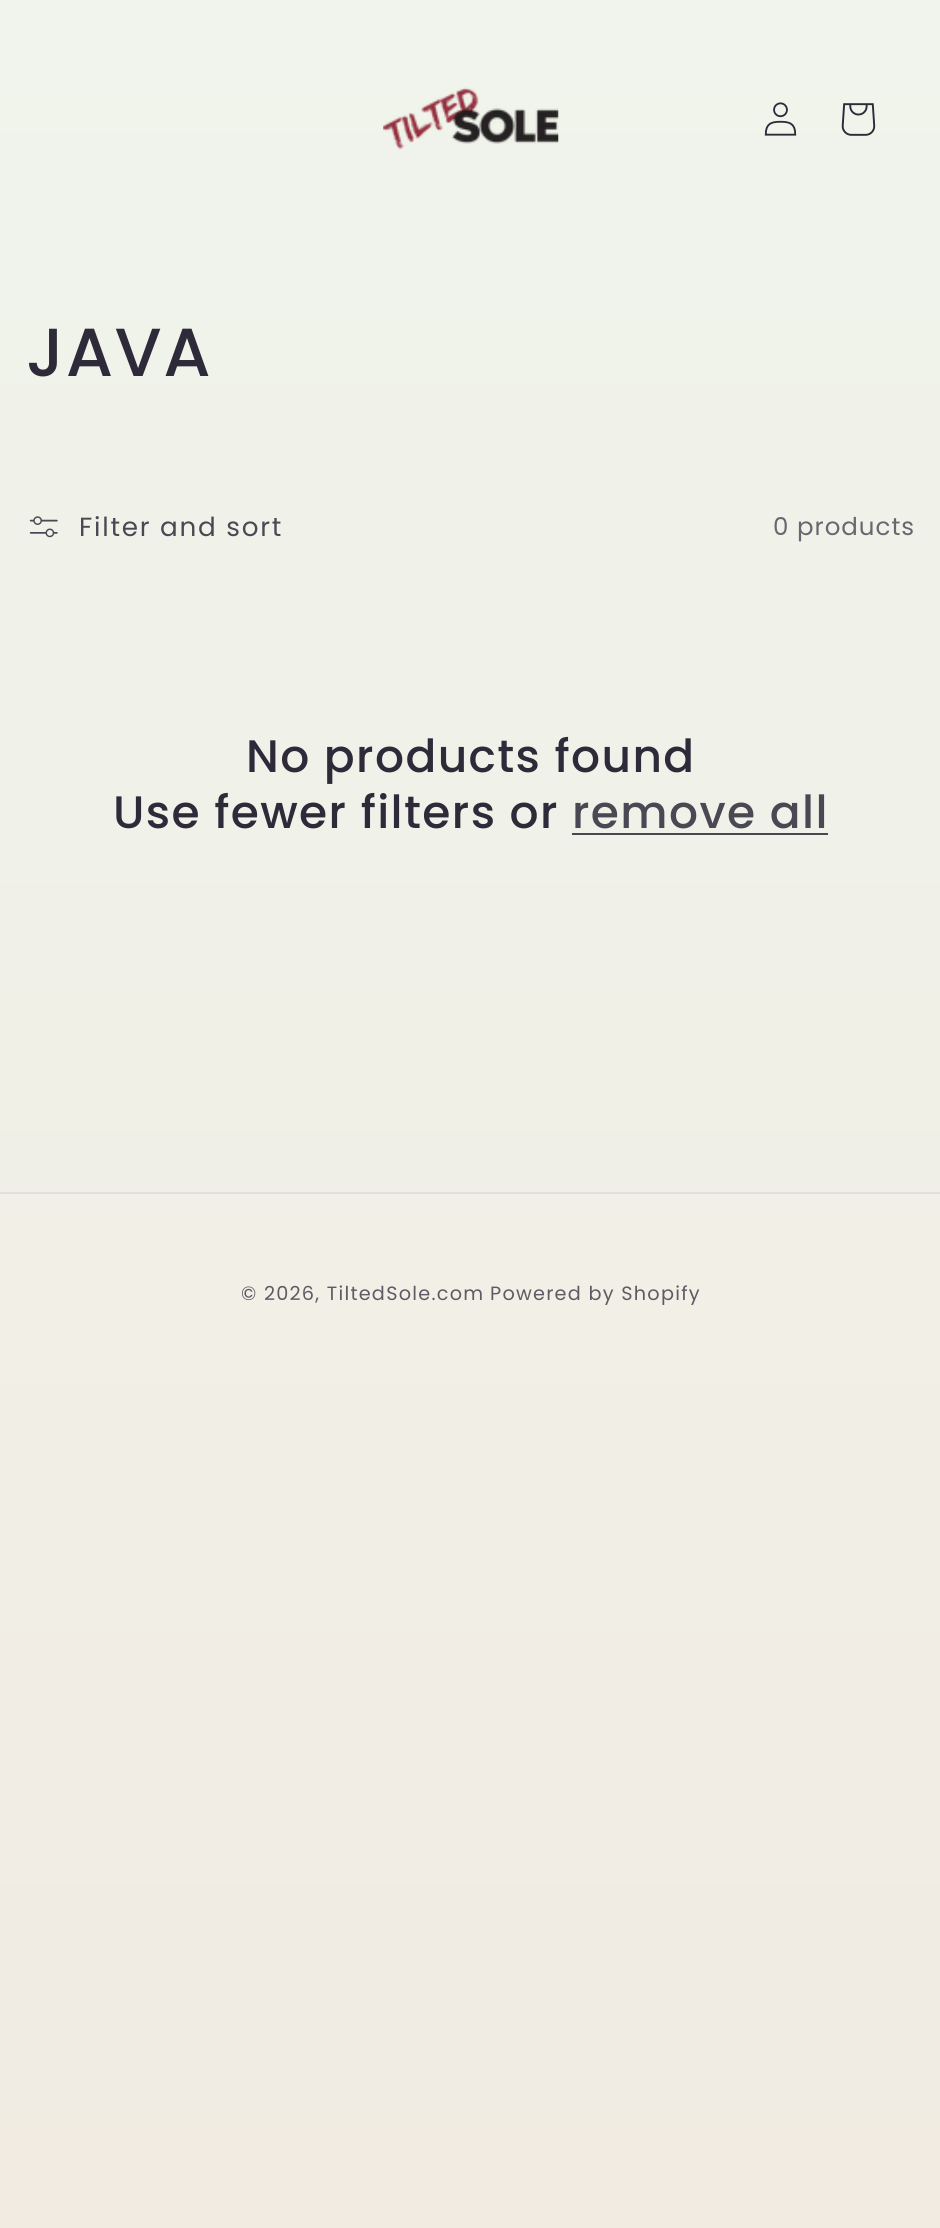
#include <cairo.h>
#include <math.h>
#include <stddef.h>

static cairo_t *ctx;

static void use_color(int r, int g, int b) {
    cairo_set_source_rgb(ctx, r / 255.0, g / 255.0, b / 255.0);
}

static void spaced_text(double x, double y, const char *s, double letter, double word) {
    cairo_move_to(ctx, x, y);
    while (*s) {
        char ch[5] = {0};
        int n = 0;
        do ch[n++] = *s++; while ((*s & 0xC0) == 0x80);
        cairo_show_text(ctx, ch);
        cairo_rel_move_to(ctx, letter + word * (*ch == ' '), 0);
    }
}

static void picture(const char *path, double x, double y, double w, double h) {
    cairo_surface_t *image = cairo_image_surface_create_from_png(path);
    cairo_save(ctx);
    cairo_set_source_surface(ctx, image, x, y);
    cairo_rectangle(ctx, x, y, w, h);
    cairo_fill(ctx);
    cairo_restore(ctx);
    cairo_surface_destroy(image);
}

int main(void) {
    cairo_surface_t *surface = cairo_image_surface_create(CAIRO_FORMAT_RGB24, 940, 2228);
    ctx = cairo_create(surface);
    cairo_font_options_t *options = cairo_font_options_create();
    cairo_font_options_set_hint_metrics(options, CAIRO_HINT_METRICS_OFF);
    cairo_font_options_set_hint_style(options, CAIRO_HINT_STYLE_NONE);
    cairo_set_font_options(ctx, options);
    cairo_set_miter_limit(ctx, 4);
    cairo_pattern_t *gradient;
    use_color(255, 255, 255);
    cairo_paint(ctx);
    gradient = cairo_pattern_create_linear(471, 0, 471, 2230);
    cairo_pattern_add_color_stop_rgba(gradient, 0, 0.941, 0.957, 0.925, 1);
    cairo_pattern_add_color_stop_rgba(gradient, 1, 0.945, 0.922, 0.886, 1);
    cairo_set_source(ctx, gradient);
    cairo_pattern_destroy(gradient);
    cairo_rectangle(ctx, 0, 0, 940, 2228);
    cairo_fill(ctx);
    picture("img1.png", 383, 87, 176, 63);
    picture("img2.png", 764, 102, 33, 34);
    picture("img3.png", 841, 103, 35, 33);
    cairo_select_font_face(ctx, "Poppins Medium", CAIRO_FONT_SLANT_NORMAL, CAIRO_FONT_WEIGHT_NORMAL);
    cairo_set_font_size(ctx, 68);
    use_color(46, 42, 57);
    spaced_text(26, 376, "JAVA", 1.4, 0);
    picture("img4.png", 29, 516, 29, 22);
    cairo_select_font_face(ctx, "Poppins", CAIRO_FONT_SLANT_NORMAL, CAIRO_FONT_WEIGHT_NORMAL);
    cairo_set_font_size(ctx, 26.25);
    use_color(75, 72, 84);
    spaced_text(79, 536, "Filter and sort", 1.75, 0);
    cairo_set_font_size(ctx, 24.5);
    use_color(104, 102, 110);
    spaced_text(773, 535, "0 products", 1, 0);
    cairo_select_font_face(ctx, "Poppins Medium", CAIRO_FONT_SLANT_NORMAL, CAIRO_FONT_WEIGHT_NORMAL);
    cairo_set_font_size(ctx, 45.5);
    use_color(46, 42, 57);
    spaced_text(246, 772, "No products found", 1.4, 0);
    spaced_text(113, 828, "Use fewer filters or", 1.4, 0);
    use_color(75, 72, 84);
    spaced_text(572, 828, "remove all", 1.4, 0);
    use_color(75, 72, 83);
    cairo_rectangle(ctx, 572, 833, 256, 2);
    cairo_fill(ctx);
    use_color(225, 223, 217);
    cairo_rectangle(ctx, 0, 1192, 940, 2);
    cairo_fill(ctx);
    cairo_select_font_face(ctx, "Poppins", CAIRO_FONT_SLANT_NORMAL, CAIRO_FONT_WEIGHT_NORMAL);
    cairo_set_font_size(ctx, 19.25);
    use_color(95, 91, 100);
    spaced_text(241, 1300, "© 2026, TiltedSole.com", 1.25, 0);
    spaced_text(490, 1300, "Powered by Shopify", 1.25, 0);
    cairo_surface_write_to_png(surface, "result.png");
    cairo_font_options_destroy(options);
    cairo_destroy(ctx);
    cairo_surface_destroy(surface);
    return 0;
}
